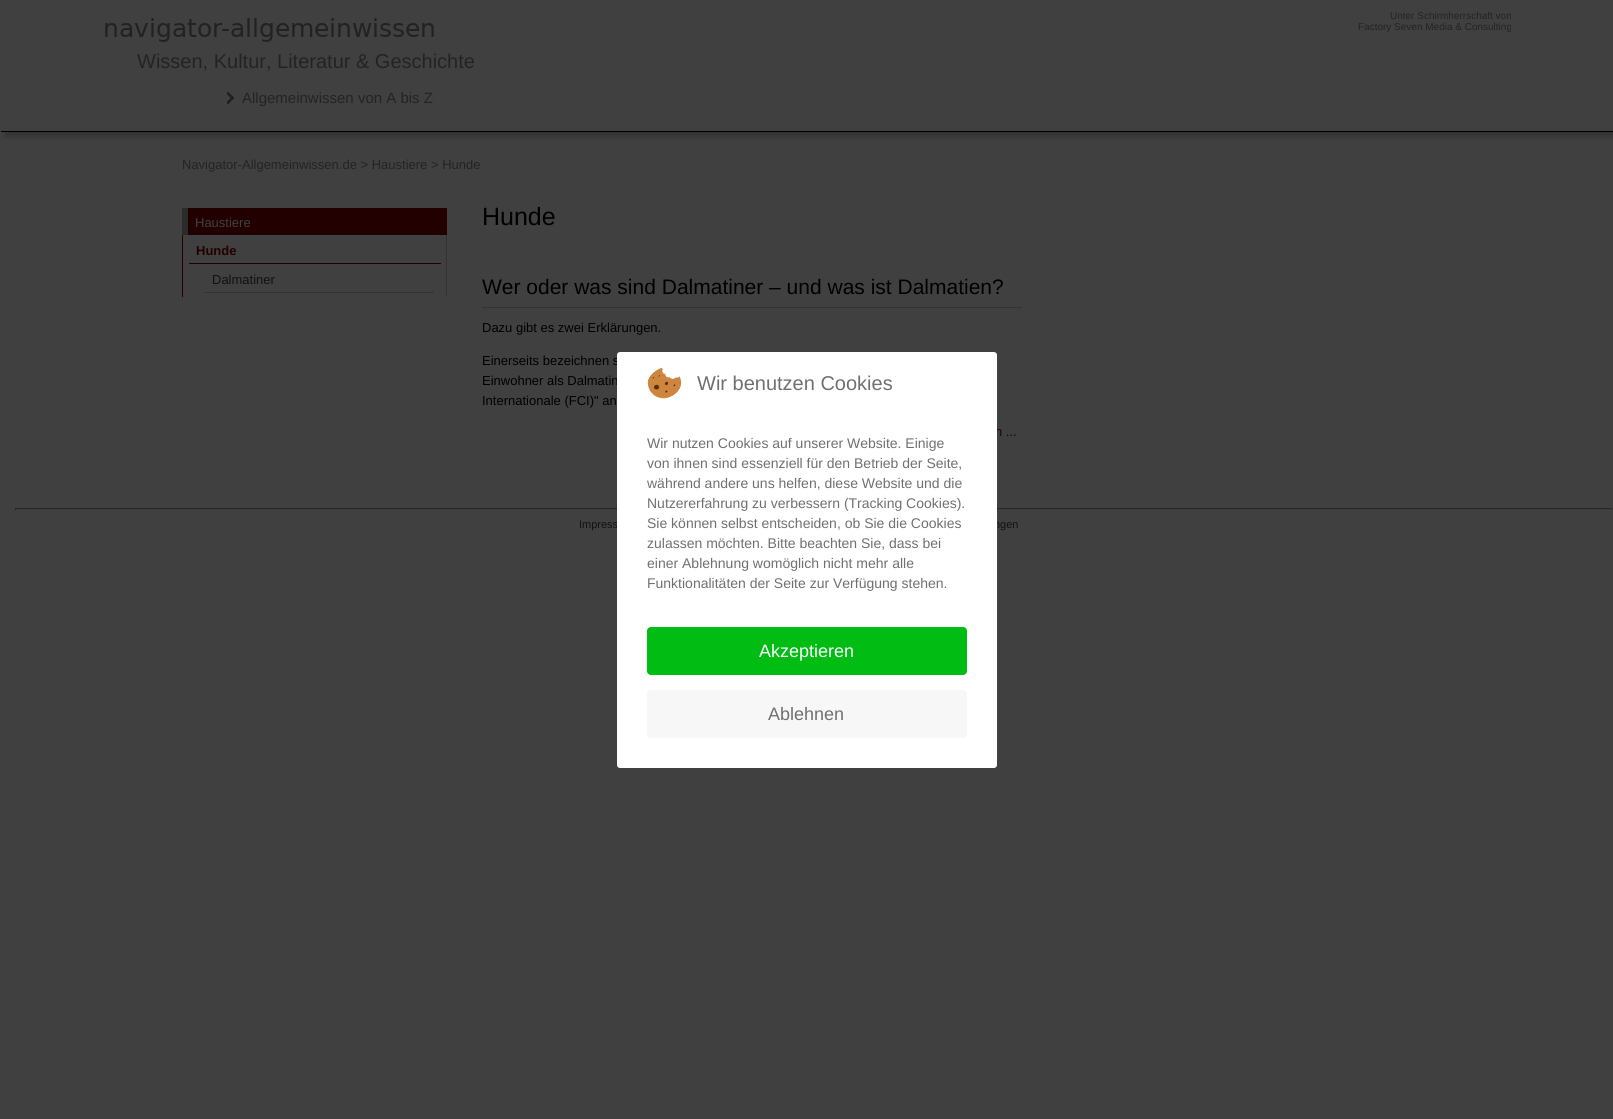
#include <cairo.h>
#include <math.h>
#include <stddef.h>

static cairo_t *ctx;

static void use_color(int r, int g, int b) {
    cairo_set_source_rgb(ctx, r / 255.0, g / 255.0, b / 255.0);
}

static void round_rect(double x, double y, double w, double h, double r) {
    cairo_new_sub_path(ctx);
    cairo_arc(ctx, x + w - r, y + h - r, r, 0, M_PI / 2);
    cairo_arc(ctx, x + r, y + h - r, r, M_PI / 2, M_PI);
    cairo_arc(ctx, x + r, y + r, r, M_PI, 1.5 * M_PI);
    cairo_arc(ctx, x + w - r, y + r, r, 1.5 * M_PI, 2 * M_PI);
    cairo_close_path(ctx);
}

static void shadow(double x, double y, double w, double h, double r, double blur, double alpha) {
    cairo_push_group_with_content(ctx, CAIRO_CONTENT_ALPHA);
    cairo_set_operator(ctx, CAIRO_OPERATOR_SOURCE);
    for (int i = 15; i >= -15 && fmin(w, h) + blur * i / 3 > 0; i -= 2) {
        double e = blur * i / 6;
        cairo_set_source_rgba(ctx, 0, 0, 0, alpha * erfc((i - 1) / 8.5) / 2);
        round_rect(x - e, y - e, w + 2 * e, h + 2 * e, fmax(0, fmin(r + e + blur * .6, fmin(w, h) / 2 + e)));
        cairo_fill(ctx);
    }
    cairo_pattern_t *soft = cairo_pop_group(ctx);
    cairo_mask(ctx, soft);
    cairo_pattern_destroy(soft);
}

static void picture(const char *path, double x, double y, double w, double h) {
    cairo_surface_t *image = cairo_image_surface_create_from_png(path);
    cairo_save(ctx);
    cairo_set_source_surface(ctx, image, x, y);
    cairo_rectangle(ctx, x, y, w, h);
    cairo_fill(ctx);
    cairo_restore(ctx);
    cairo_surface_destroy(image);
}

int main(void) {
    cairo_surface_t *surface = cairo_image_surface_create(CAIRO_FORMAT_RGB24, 1613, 1119);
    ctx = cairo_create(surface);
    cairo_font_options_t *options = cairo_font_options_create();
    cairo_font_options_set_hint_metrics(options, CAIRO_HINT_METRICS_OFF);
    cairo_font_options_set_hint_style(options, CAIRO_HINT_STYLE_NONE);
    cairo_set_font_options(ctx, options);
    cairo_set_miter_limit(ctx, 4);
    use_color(64, 64, 64);
    cairo_paint(ctx);
    cairo_save(ctx);
    cairo_rectangle(ctx, 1, 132, 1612, 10);
    cairo_clip(ctx);
    use_color(51, 51, 51);
    shadow(5, 7, 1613, 130, 0, 2.5, 1);
    cairo_restore(ctx);
    cairo_select_font_face(ctx, "Liberation Sans", CAIRO_FONT_SLANT_NORMAL, CAIRO_FONT_WEIGHT_NORMAL);
    cairo_set_font_size(ctx, 10);
    use_color(35, 35, 35);
    cairo_move_to(ctx, 1390, 19);
    cairo_show_text(ctx, "Unter Schirmherrschaft von");
    cairo_move_to(ctx, 1358, 30);
    cairo_show_text(ctx, "Factory Seven Media & Consulting");
    use_color(0, 0, 0);
    cairo_rectangle(ctx, 0, 131, 1613, 1);
    cairo_fill(ctx);
    picture("img1.png", 105, 18, 329, 24);
    cairo_set_font_size(ctx, 20);
    use_color(35, 35, 35);
    cairo_move_to(ctx, 137, 68);
    cairo_show_text(ctx, "Wissen, Kultur, Literatur & Geschichte");
    picture("img2.png", 227, 92, 7, 12);
    cairo_set_font_size(ctx, 15);
    cairo_move_to(ctx, 242, 103);
    cairo_show_text(ctx, "Allgemeinwissen von A bis Z");
    cairo_set_font_size(ctx, 13);
    cairo_move_to(ctx, 182, 169);
    cairo_show_text(ctx, "Navigator-Allgemeinwissen.de > Haustiere > Hunde");
    use_color(51, 51, 51);
    cairo_rectangle(ctx, 446, 235, 1, 62);
    cairo_fill(ctx);
    use_color(34, 0, 0);
    cairo_rectangle(ctx, 188, 208, 259, 27);
    cairo_fill(ctx);
    use_color(43, 43, 43);
    cairo_rectangle(ctx, 182, 208, 6, 27);
    cairo_fill(ctx);
    use_color(64, 64, 64);
    cairo_move_to(ctx, 195, 227);
    cairo_show_text(ctx, "Haustiere");
    use_color(34, 0, 0);
    cairo_rectangle(ctx, 182, 235, 1, 62);
    cairo_fill(ctx);
    cairo_rectangle(ctx, 189, 263, 252, 1);
    cairo_fill(ctx);
    cairo_select_font_face(ctx, "Liberation Sans", CAIRO_FONT_SLANT_NORMAL, CAIRO_FONT_WEIGHT_BOLD);
    cairo_move_to(ctx, 196, 255);
    cairo_show_text(ctx, "Hunde");
    use_color(51, 51, 51);
    cairo_rectangle(ctx, 205, 292, 229, 1);
    cairo_fill(ctx);
    cairo_select_font_face(ctx, "Liberation Sans", CAIRO_FONT_SLANT_NORMAL, CAIRO_FONT_WEIGHT_NORMAL);
    use_color(17, 17, 17);
    cairo_move_to(ctx, 212, 284);
    cairo_show_text(ctx, "Dalmatiner");
    use_color(64, 64, 64);
    cairo_rectangle(ctx, 0, 131, 1, 1);
    cairo_fill(ctx);
    cairo_set_font_size(ctx, 25);
    use_color(0, 0, 0);
    cairo_move_to(ctx, 482, 225);
    cairo_show_text(ctx, "Hunde");
    use_color(51, 51, 51);
    cairo_rectangle(ctx, 482, 307, 540, 1);
    cairo_fill(ctx);
    cairo_set_font_size(ctx, 21);
    use_color(0, 0, 0);
    cairo_move_to(ctx, 482, 294);
    cairo_show_text(ctx, "Wer oder was sind Dalmatiner – und was ist Dalmatien?");
    cairo_set_font_size(ctx, 13);
    cairo_move_to(ctx, 482, 332);
    cairo_show_text(ctx, "Dazu gibt es zwei Erklärungen.");
    cairo_move_to(ctx, 482, 365);
    cairo_show_text(ctx, "Einerseits bezeichnen s");
    cairo_move_to(ctx, 482, 385);
    cairo_show_text(ctx, "Einwohner als Dalmatin");
    cairo_move_to(ctx, 482, 405);
    cairo_show_text(ctx, "Internationale (FCI)\" an");
    use_color(34, 0, 0);
    cairo_move_to(ctx, 995, 436);
    cairo_show_text(ctx, "n ...");
    use_color(40, 40, 40);
    cairo_rectangle(ctx, 15, 508, 1598, 1);
    cairo_fill(ctx);
    use_color(60, 60, 60);
    cairo_rectangle(ctx, 1612, 508, 1, 2);
    cairo_fill(ctx);
    cairo_rectangle(ctx, 15, 509, 1598, 1);
    cairo_fill(ctx);
    cairo_set_font_size(ctx, 11);
    use_color(17, 17, 17);
    cairo_move_to(ctx, 579, 528);
    cairo_show_text(ctx, "Impress");
    cairo_move_to(ctx, 994, 528);
    cairo_show_text(ctx, "ngen");
    use_color(255, 255, 255);
    round_rect(617, 352, 380, 416, 3);
    cairo_fill(ctx);
    picture("img3.png", 647, 367, 35, 32);
    cairo_set_font_size(ctx, 20);
    use_color(112, 112, 112);
    cairo_move_to(ctx, 697, 390);
    cairo_show_text(ctx, "Wir benutzen Cookies");
    cairo_set_font_size(ctx, 14);
    cairo_move_to(ctx, 647, 448);
    cairo_show_text(ctx, "Wir nutzen Cookies auf unserer Website. Einige");
    cairo_move_to(ctx, 647, 468);
    cairo_show_text(ctx, "von ihnen sind essenziell für den Betrieb der Seite,");
    cairo_move_to(ctx, 647, 488);
    cairo_show_text(ctx, "während andere uns helfen, diese Website und die");
    cairo_move_to(ctx, 647, 508);
    cairo_show_text(ctx, "Nutzererfahrung zu verbessern (Tracking Cookies).");
    cairo_move_to(ctx, 647, 528);
    cairo_show_text(ctx, "Sie können selbst entscheiden, ob Sie die Cookies");
    cairo_move_to(ctx, 647, 548);
    cairo_show_text(ctx, "zulassen möchten. Bitte beachten Sie, dass bei");
    cairo_move_to(ctx, 647, 568);
    cairo_show_text(ctx, "einer Ablehnung womöglich nicht mehr alle");
    cairo_move_to(ctx, 647, 588);
    cairo_show_text(ctx, "Funktionalitäten der Seite zur Verfügung stehen.");
    use_color(0, 188, 19);
    round_rect(647, 627, 320, 48, 4);
    cairo_fill(ctx);
    cairo_set_font_size(ctx, 18);
    use_color(255, 255, 255);
    cairo_move_to(ctx, 759, 657);
    cairo_show_text(ctx, "Akzeptieren");
    use_color(247, 247, 247);
    round_rect(647, 690, 320, 48, 4);
    cairo_fill(ctx);
    use_color(112, 112, 112);
    cairo_move_to(ctx, 768, 720);
    cairo_show_text(ctx, "Ablehnen");
    use_color(40, 40, 40);
    cairo_rectangle(ctx, 15, 508, 1, 2);
    cairo_fill(ctx);
    cairo_surface_write_to_png(surface, "result.png");
    cairo_font_options_destroy(options);
    cairo_destroy(ctx);
    cairo_surface_destroy(surface);
    return 0;
}
